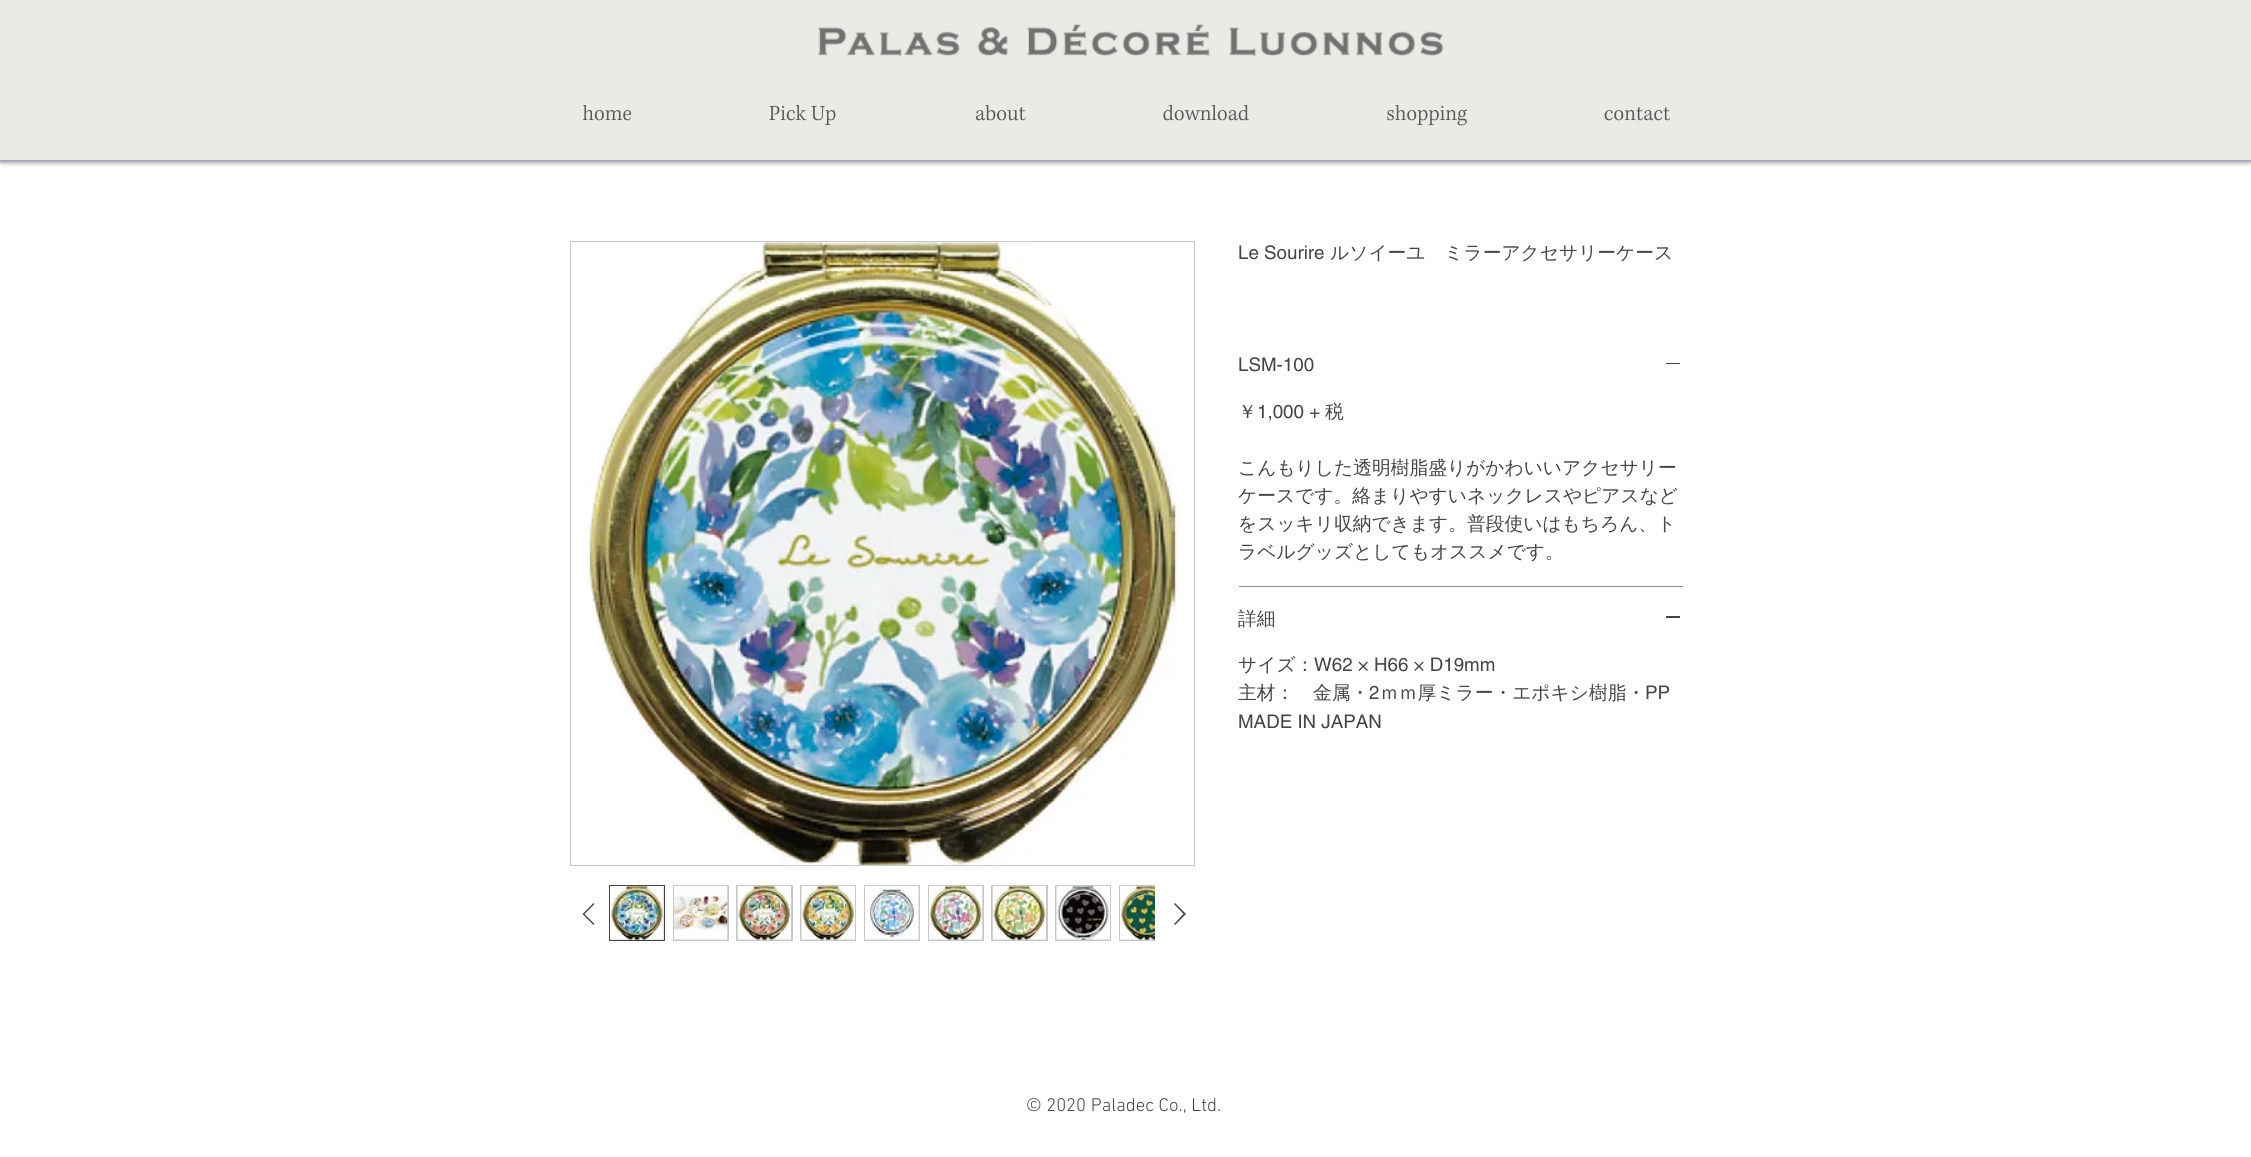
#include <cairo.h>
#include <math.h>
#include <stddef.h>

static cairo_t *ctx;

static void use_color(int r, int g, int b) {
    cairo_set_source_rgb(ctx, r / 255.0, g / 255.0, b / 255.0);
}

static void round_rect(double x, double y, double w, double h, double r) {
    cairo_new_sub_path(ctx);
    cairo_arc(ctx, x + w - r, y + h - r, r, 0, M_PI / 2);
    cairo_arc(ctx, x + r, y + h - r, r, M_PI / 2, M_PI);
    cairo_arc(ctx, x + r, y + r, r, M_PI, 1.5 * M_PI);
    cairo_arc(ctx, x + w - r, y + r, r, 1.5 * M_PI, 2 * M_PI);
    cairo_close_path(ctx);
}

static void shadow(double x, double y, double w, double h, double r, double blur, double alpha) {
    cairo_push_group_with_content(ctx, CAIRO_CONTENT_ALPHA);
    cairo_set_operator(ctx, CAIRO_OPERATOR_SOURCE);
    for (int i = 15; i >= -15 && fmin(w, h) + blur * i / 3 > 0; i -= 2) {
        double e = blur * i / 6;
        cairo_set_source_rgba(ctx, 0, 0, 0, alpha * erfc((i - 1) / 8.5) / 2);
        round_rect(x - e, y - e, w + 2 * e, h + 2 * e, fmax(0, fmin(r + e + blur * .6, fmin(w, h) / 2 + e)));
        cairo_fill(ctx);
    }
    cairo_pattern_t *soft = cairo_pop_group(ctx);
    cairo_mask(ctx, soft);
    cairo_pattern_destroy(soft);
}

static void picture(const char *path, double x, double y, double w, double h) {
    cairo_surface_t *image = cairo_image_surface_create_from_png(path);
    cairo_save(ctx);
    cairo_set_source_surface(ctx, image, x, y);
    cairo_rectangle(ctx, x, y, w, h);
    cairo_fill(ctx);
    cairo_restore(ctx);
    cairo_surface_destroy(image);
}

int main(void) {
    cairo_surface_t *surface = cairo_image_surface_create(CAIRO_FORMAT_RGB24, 2251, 1157);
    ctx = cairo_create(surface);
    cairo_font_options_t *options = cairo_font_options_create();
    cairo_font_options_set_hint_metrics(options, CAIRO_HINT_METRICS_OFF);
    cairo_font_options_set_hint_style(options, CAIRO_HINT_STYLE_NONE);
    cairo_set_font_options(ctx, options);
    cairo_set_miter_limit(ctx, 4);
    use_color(255, 255, 255);
    cairo_paint(ctx);
    use_color(0, 0, 0);
    shadow(0, 0, 2251, 161, 0, 3, 0.7);
    use_color(234, 235, 230);
    cairo_rectangle(ctx, 0, 0, 2251, 160);
    cairo_fill(ctx);
    use_color(163, 169, 186);
    cairo_rectangle(ctx, 0, 160, 2251, 1);
    cairo_fill(ctx);
    picture("img1.png", 817, 23, 627, 33);
    picture("img2.png", 583, 105, 49, 16);
    picture("img3.png", 769, 105, 67, 21);
    picture("img4.png", 976, 105, 50, 16);
    picture("img5.png", 1163, 104, 86, 17);
    picture("img6.png", 1387, 104, 80, 22);
    picture("img7.png", 1604, 107, 66, 14);
    cairo_rectangle(ctx, 570.5, 241.5, 624, 624);
    use_color(200, 200, 200);
    cairo_set_line_width(ctx, 1);
    cairo_stroke(ctx);
    picture("img8.png", 586, 242, 595, 623);
    use_color(69, 69, 69);
    cairo_set_fill_rule(ctx, CAIRO_FILL_RULE_EVEN_ODD);
    cairo_new_path(ctx);
    cairo_move_to(ctx, 593.5, 903);
    cairo_line_to(ctx, 594.5, 904);
    cairo_line_to(ctx, 584.5, 914);
    cairo_line_to(ctx, 594.5, 924);
    cairo_line_to(ctx, 593.5, 925);
    cairo_line_to(ctx, 582.5, 914);
    cairo_close_path(ctx);
    cairo_fill(ctx);
    use_color(200, 200, 200);
    cairo_rectangle(ctx, 609.5, 885.5, 55, 55);
    cairo_fill_preserve(ctx);
    use_color(69, 69, 69);
    cairo_stroke(ctx);
    picture("img9.png", 610, 886, 54, 54);
    use_color(200, 200, 200);
    cairo_rectangle(ctx, 673, 885, 56, 56);
    cairo_fill(ctx);
    picture("img10.png", 674, 886, 54, 54);
    cairo_rectangle(ctx, 736, 885, 57, 56);
    cairo_fill(ctx);
    picture("img11.png", 737, 886, 54, 54);
    cairo_rectangle(ctx, 800, 885, 56, 56);
    cairo_fill(ctx);
    picture("img12.png", 801, 886, 54, 54);
    cairo_rectangle(ctx, 864, 885, 56, 56);
    cairo_fill(ctx);
    picture("img13.png", 865, 886, 54, 54);
    cairo_rectangle(ctx, 928, 885, 56, 56);
    cairo_fill(ctx);
    picture("img14.png", 929, 886, 54, 54);
    cairo_rectangle(ctx, 991, 885, 57, 56);
    cairo_fill(ctx);
    picture("img15.png", 992, 886, 54, 54);
    cairo_rectangle(ctx, 1055, 885, 56, 56);
    cairo_fill(ctx);
    picture("img16.png", 1056, 886, 54, 54);
    cairo_rectangle(ctx, 1119, 885, 36, 56);
    cairo_fill(ctx);
    picture("img17.png", 1120, 886, 35, 54);
    use_color(69, 69, 69);
    cairo_new_path(ctx);
    cairo_move_to(ctx, 1175, 903);
    cairo_line_to(ctx, 1186, 914);
    cairo_line_to(ctx, 1175, 925);
    cairo_line_to(ctx, 1174, 924);
    cairo_line_to(ctx, 1183.5, 914);
    cairo_line_to(ctx, 1174, 904);
    cairo_close_path(ctx);
    cairo_fill(ctx);
    cairo_select_font_face(ctx, "helvetica", CAIRO_FONT_SLANT_NORMAL, CAIRO_FONT_WEIGHT_NORMAL);
    cairo_set_font_size(ctx, 18.75);
    cairo_move_to(ctx, 1238, 259);
    cairo_show_text(ctx, "Le Sourire");
    cairo_select_font_face(ctx, "WenQuanYi Zen Hei Medium", CAIRO_FONT_SLANT_NORMAL, CAIRO_FONT_WEIGHT_NORMAL);
    cairo_move_to(ctx, 1330, 259);
    cairo_show_text(ctx, "ルソイーユ　ミラーアクセサリーケース");
    use_color(142, 142, 139);
    cairo_rectangle(ctx, 1239, 586, 444, 1);
    cairo_fill(ctx);
    cairo_select_font_face(ctx, "helvetica", CAIRO_FONT_SLANT_NORMAL, CAIRO_FONT_WEIGHT_NORMAL);
    use_color(69, 69, 69);
    cairo_move_to(ctx, 1238, 371);
    cairo_show_text(ctx, "LSM-100");
    cairo_rectangle(ctx, 1666, 363, 14, 1);
    cairo_fill(ctx);
    cairo_select_font_face(ctx, "WenQuanYi Zen Hei Medium", CAIRO_FONT_SLANT_NORMAL, CAIRO_FONT_WEIGHT_NORMAL);
    cairo_move_to(ctx, 1238, 418);
    cairo_show_text(ctx, "￥");
    cairo_select_font_face(ctx, "helvetica", CAIRO_FONT_SLANT_NORMAL, CAIRO_FONT_WEIGHT_NORMAL);
    cairo_move_to(ctx, 1257, 418);
    cairo_show_text(ctx, "1,000 +");
    cairo_select_font_face(ctx, "WenQuanYi Zen Hei Medium", CAIRO_FONT_SLANT_NORMAL, CAIRO_FONT_WEIGHT_NORMAL);
    cairo_move_to(ctx, 1325, 418);
    cairo_show_text(ctx, "税");
    cairo_move_to(ctx, 1238, 474);
    cairo_show_text(ctx, "こんもりした透明樹脂盛りがかわいいアクセサリー");
    cairo_move_to(ctx, 1238, 502);
    cairo_show_text(ctx, "ケースです。絡まりやすいネックレスやピアスなど");
    cairo_move_to(ctx, 1238, 530);
    cairo_show_text(ctx, "をスッキリ収納できます。普段使いはもちろん、ト");
    cairo_move_to(ctx, 1238, 558);
    cairo_show_text(ctx, "ラベルグッズとしてもオススメです。");
    cairo_move_to(ctx, 1238, 625);
    cairo_show_text(ctx, "詳細");
    cairo_rectangle(ctx, 1666, 616, 14, 2);
    cairo_fill(ctx);
    cairo_move_to(ctx, 1238, 671);
    cairo_show_text(ctx, "サイズ：");
    cairo_select_font_face(ctx, "helvetica", CAIRO_FONT_SLANT_NORMAL, CAIRO_FONT_WEIGHT_NORMAL);
    cairo_move_to(ctx, 1314, 671);
    cairo_show_text(ctx, "W62 × H66 × D19mm");
    cairo_select_font_face(ctx, "WenQuanYi Zen Hei Medium", CAIRO_FONT_SLANT_NORMAL, CAIRO_FONT_WEIGHT_NORMAL);
    cairo_move_to(ctx, 1238, 699);
    cairo_show_text(ctx, "主材：　金属・");
    cairo_select_font_face(ctx, "helvetica", CAIRO_FONT_SLANT_NORMAL, CAIRO_FONT_WEIGHT_NORMAL);
    cairo_move_to(ctx, 1369, 699);
    cairo_show_text(ctx, "2");
    cairo_select_font_face(ctx, "WenQuanYi Zen Hei Medium", CAIRO_FONT_SLANT_NORMAL, CAIRO_FONT_WEIGHT_NORMAL);
    cairo_move_to(ctx, 1380, 699);
    cairo_show_text(ctx, "ｍｍ厚ミラー・エポキシ樹脂・");
    cairo_select_font_face(ctx, "helvetica", CAIRO_FONT_SLANT_NORMAL, CAIRO_FONT_WEIGHT_NORMAL);
    cairo_move_to(ctx, 1645, 699);
    cairo_show_text(ctx, "PP");
    cairo_move_to(ctx, 1238, 728);
    cairo_show_text(ctx, "MADE IN JAPAN");
    cairo_select_font_face(ctx, "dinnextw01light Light", CAIRO_FONT_SLANT_NORMAL, CAIRO_FONT_WEIGHT_NORMAL);
    cairo_move_to(ctx, 1026, 1111);
    cairo_show_text(ctx, "© 2020 Paladec Co., Ltd.");
    cairo_surface_write_to_png(surface, "result.png");
    cairo_font_options_destroy(options);
    cairo_destroy(ctx);
    cairo_surface_destroy(surface);
    return 0;
}
